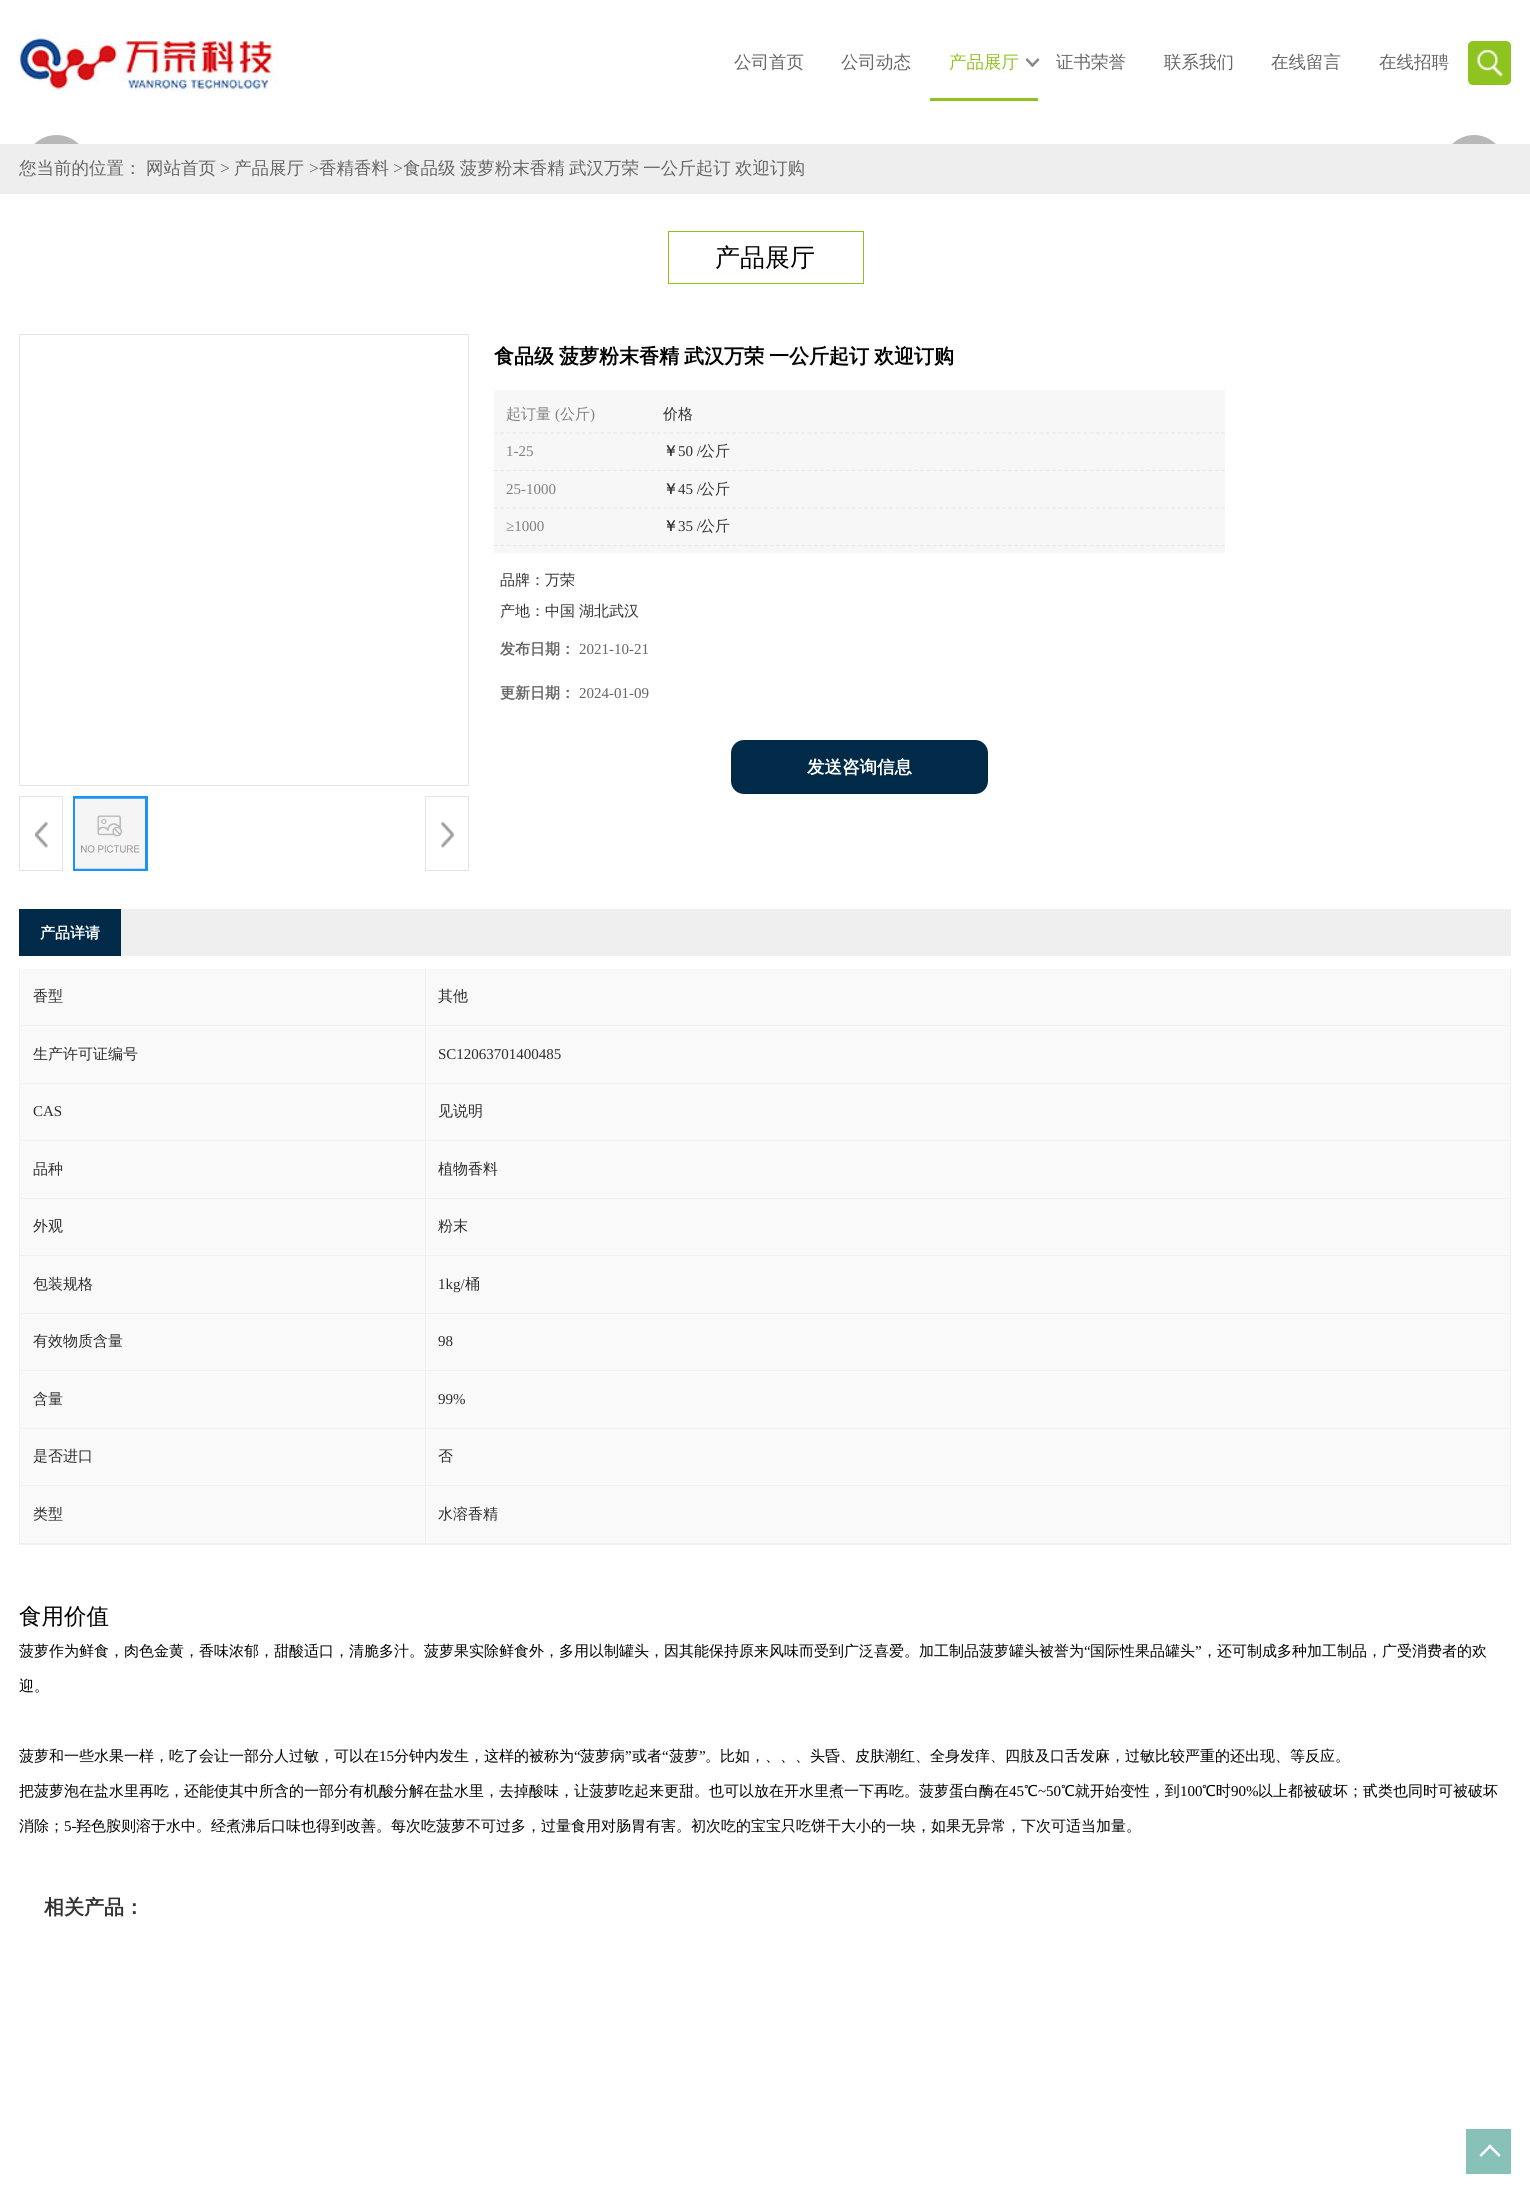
#include <cairo.h>
#include <math.h>
#include <stddef.h>

static cairo_t *ctx;

static void use_color(int r, int g, int b) {
    cairo_set_source_rgb(ctx, r / 255.0, g / 255.0, b / 255.0);
}

static void spaced_text(double x, double y, const char *s, double letter, double word) {
    cairo_move_to(ctx, x, y);
    while (*s) {
        char ch[5] = {0};
        int n = 0;
        do ch[n++] = *s++; while ((*s & 0xC0) == 0x80);
        cairo_show_text(ctx, ch);
        cairo_rel_move_to(ctx, letter + word * (*ch == ' '), 0);
    }
}

static void round_rect(double x, double y, double w, double h, double r) {
    cairo_new_sub_path(ctx);
    cairo_arc(ctx, x + w - r, y + h - r, r, 0, M_PI / 2);
    cairo_arc(ctx, x + r, y + h - r, r, M_PI / 2, M_PI);
    cairo_arc(ctx, x + r, y + r, r, M_PI, 1.5 * M_PI);
    cairo_arc(ctx, x + w - r, y + r, r, 1.5 * M_PI, 2 * M_PI);
    cairo_close_path(ctx);
}

static void picture(const char *path, double x, double y, double w, double h) {
    cairo_surface_t *image = cairo_image_surface_create_from_png(path);
    cairo_save(ctx);
    cairo_set_source_surface(ctx, image, x, y);
    cairo_rectangle(ctx, x, y, w, h);
    cairo_fill(ctx);
    cairo_restore(ctx);
    cairo_surface_destroy(image);
}

int main(void) {
    cairo_surface_t *surface = cairo_image_surface_create(CAIRO_FORMAT_RGB24, 1530, 2186);
    ctx = cairo_create(surface);
    cairo_font_options_t *options = cairo_font_options_create();
    cairo_font_options_set_hint_metrics(options, CAIRO_HINT_METRICS_OFF);
    cairo_font_options_set_hint_style(options, CAIRO_HINT_STYLE_NONE);
    cairo_set_font_options(ctx, options);
    cairo_set_miter_limit(ctx, 4);
    use_color(255, 255, 255);
    cairo_paint(ctx);
    picture("img1.png", 19, 31, 260, 61);
    cairo_select_font_face(ctx, "WenQuanYi Zen Hei Medium", CAIRO_FONT_SLANT_NORMAL, CAIRO_FONT_WEIGHT_NORMAL);
    cairo_set_font_size(ctx, 17.5);
    use_color(102, 102, 102);
    cairo_move_to(ctx, 734, 68);
    cairo_show_text(ctx, "公司首页");
    cairo_move_to(ctx, 841, 68);
    cairo_show_text(ctx, "公司动态");
    use_color(143, 195, 32);
    cairo_move_to(ctx, 949, 68);
    cairo_show_text(ctx, "产品展厅");
    cairo_rectangle(ctx, 930, 98, 108, 3);
    cairo_fill(ctx);
    use_color(136, 136, 136);
    cairo_new_path(ctx);
    cairo_move_to(ctx, 1039.5, 60);
    cairo_line_to(ctx, 1032.5, 67);
    cairo_line_to(ctx, 1030.5, 65.5);
    cairo_line_to(ctx, 1038, 58);
    cairo_close_path(ctx);
    cairo_fill(ctx);
    cairo_new_path(ctx);
    cairo_move_to(ctx, 1034.5, 65.5);
    cairo_line_to(ctx, 1032.5, 67);
    cairo_line_to(ctx, 1025.5, 60);
    cairo_line_to(ctx, 1027, 58);
    cairo_close_path(ctx);
    cairo_fill(ctx);
    use_color(102, 102, 102);
    cairo_move_to(ctx, 1056, 68);
    cairo_show_text(ctx, "证书荣誉");
    cairo_move_to(ctx, 1164, 68);
    cairo_show_text(ctx, "联系我们");
    cairo_move_to(ctx, 1271, 68);
    cairo_show_text(ctx, "在线留言");
    cairo_move_to(ctx, 1379, 68);
    cairo_show_text(ctx, "在线招聘");
    use_color(143, 195, 32);
    round_rect(1468, 41, 43, 44, 5);
    cairo_fill(ctx);
    picture("img2.png", 1477, 50, 26, 27);
    cairo_set_source_rgba(ctx, 0, 0, 0, 0.28);
    cairo_new_path(ctx);
    cairo_move_to(ctx, 56.5, 135);
    cairo_curve_to(ctx, 74, 135, 88, 149, 88, 166.5);
    cairo_line_to(ctx, 88, 144);
    cairo_line_to(ctx, 25, 144);
    cairo_line_to(ctx, 25, 166.5);
    cairo_curve_to(ctx, 25, 149, 39, 135, 56.5, 135);
    cairo_close_path(ctx);
    cairo_fill(ctx);
    cairo_new_path(ctx);
    cairo_move_to(ctx, 1474, 135);
    cairo_curve_to(ctx, 1491, 135, 1505, 149, 1505, 166);
    cairo_line_to(ctx, 1505, 144);
    cairo_line_to(ctx, 1443, 144);
    cairo_line_to(ctx, 1443, 166);
    cairo_curve_to(ctx, 1443, 149, 1457, 135, 1474, 135);
    cairo_close_path(ctx);
    cairo_fill(ctx);
    use_color(238, 238, 238);
    cairo_rectangle(ctx, 0, 144, 1530, 50);
    cairo_fill(ctx);
    use_color(102, 102, 102);
    cairo_move_to(ctx, 19, 174);
    cairo_show_text(ctx, "您当前的位置：");
    cairo_move_to(ctx, 146, 174);
    cairo_show_text(ctx, "网站首页");
    cairo_select_font_face(ctx, "Liberation Serif", CAIRO_FONT_SLANT_NORMAL, CAIRO_FONT_WEIGHT_NORMAL);
    cairo_move_to(ctx, 220, 174);
    cairo_show_text(ctx, ">");
    cairo_select_font_face(ctx, "WenQuanYi Zen Hei Medium", CAIRO_FONT_SLANT_NORMAL, CAIRO_FONT_WEIGHT_NORMAL);
    cairo_move_to(ctx, 234, 174);
    cairo_show_text(ctx, "产品展厅");
    cairo_select_font_face(ctx, "Liberation Serif", CAIRO_FONT_SLANT_NORMAL, CAIRO_FONT_WEIGHT_NORMAL);
    cairo_move_to(ctx, 309, 174);
    cairo_show_text(ctx, ">");
    cairo_select_font_face(ctx, "WenQuanYi Zen Hei Medium", CAIRO_FONT_SLANT_NORMAL, CAIRO_FONT_WEIGHT_NORMAL);
    cairo_move_to(ctx, 319, 174);
    cairo_show_text(ctx, "香精香料");
    cairo_select_font_face(ctx, "Liberation Serif", CAIRO_FONT_SLANT_NORMAL, CAIRO_FONT_WEIGHT_NORMAL);
    cairo_move_to(ctx, 393, 174);
    cairo_show_text(ctx, ">");
    cairo_select_font_face(ctx, "WenQuanYi Zen Hei Medium", CAIRO_FONT_SLANT_NORMAL, CAIRO_FONT_WEIGHT_NORMAL);
    spaced_text(403, 174, "食品级 菠萝粉末香精 武汉万荣 一公斤起订 欢迎订购", 0, -1);
    cairo_rectangle(ctx, 668.5, 231.5, 195, 52);
    use_color(143, 195, 32);
    cairo_set_line_width(ctx, 1);
    cairo_stroke(ctx);
    cairo_set_font_size(ctx, 25);
    use_color(0, 0, 0);
    cairo_move_to(ctx, 715, 266);
    cairo_show_text(ctx, "产品展厅");
    cairo_rectangle(ctx, 19.5, 334.5, 449, 451);
    use_color(228, 228, 228);
    cairo_stroke(ctx);
    picture("img3.png", 35, 821, 13, 27);
    cairo_rectangle(ctx, 19.5, 796.5, 43, 74);
    use_color(229, 229, 229);
    cairo_stroke(ctx);
    cairo_rectangle(ctx, 74.5, 797.5, 72, 72);
    use_color(27, 148, 246);
    cairo_set_line_width(ctx, 3);
    cairo_stroke(ctx);
    picture("img4.png", 75, 798, 70, 71);
    picture("img5.png", 441, 821, 13, 27);
    cairo_rectangle(ctx, 425.5, 796.5, 43, 74);
    use_color(229, 229, 229);
    cairo_set_line_width(ctx, 1);
    cairo_stroke(ctx);
    cairo_select_font_face(ctx, "WenQuanYi Zen Hei", CAIRO_FONT_SLANT_NORMAL, CAIRO_FONT_WEIGHT_BOLD);
    cairo_set_font_size(ctx, 20);
    use_color(0, 0, 0);
    spaced_text(494, 363, "食品级 菠萝粉末香精 武汉万荣 一公斤起订 欢迎订购", 0, -1);
    use_color(247, 247, 247);
    cairo_rectangle(ctx, 494, 390, 731, 163);
    cairo_fill(ctx);
    cairo_new_path(ctx);
    cairo_move_to(ctx, 494, 433);
    cairo_line_to(ctx, 1225, 433);
    use_color(233, 233, 233);
    cairo_set_line_width(ctx, 1.2);
    cairo_set_dash(ctx, (double[]){3.75, 2.52}, 2, 0);
    cairo_stroke(ctx);
    cairo_select_font_face(ctx, "WenQuanYi Zen Hei Medium", CAIRO_FONT_SLANT_NORMAL, CAIRO_FONT_WEIGHT_NORMAL);
    cairo_set_font_size(ctx, 15);
    use_color(128, 128, 128);
    cairo_move_to(ctx, 506, 419);
    cairo_show_text(ctx, "起订量");
    cairo_select_font_face(ctx, "Liberation Serif", CAIRO_FONT_SLANT_NORMAL, CAIRO_FONT_WEIGHT_NORMAL);
    cairo_move_to(ctx, 555, 419);
    cairo_show_text(ctx, "(");
    cairo_select_font_face(ctx, "WenQuanYi Zen Hei Medium", CAIRO_FONT_SLANT_NORMAL, CAIRO_FONT_WEIGHT_NORMAL);
    cairo_move_to(ctx, 560, 419);
    cairo_show_text(ctx, "公斤");
    cairo_select_font_face(ctx, "Liberation Serif", CAIRO_FONT_SLANT_NORMAL, CAIRO_FONT_WEIGHT_NORMAL);
    cairo_move_to(ctx, 590, 419);
    cairo_show_text(ctx, ")");
    cairo_select_font_face(ctx, "WenQuanYi Zen Hei Medium", CAIRO_FONT_SLANT_NORMAL, CAIRO_FONT_WEIGHT_NORMAL);
    use_color(51, 51, 51);
    cairo_move_to(ctx, 663, 419);
    cairo_show_text(ctx, "价格");
    cairo_new_path(ctx);
    cairo_move_to(ctx, 494, 470.5);
    cairo_line_to(ctx, 1225, 470.5);
    use_color(233, 233, 233);
    cairo_stroke(ctx);
    cairo_select_font_face(ctx, "Liberation Serif", CAIRO_FONT_SLANT_NORMAL, CAIRO_FONT_WEIGHT_NORMAL);
    use_color(128, 128, 128);
    cairo_move_to(ctx, 506, 456);
    cairo_show_text(ctx, "1-25");
    cairo_select_font_face(ctx, "WenQuanYi Zen Hei", CAIRO_FONT_SLANT_NORMAL, CAIRO_FONT_WEIGHT_BOLD);
    use_color(51, 51, 51);
    cairo_move_to(ctx, 663, 456);
    cairo_show_text(ctx, "￥");
    cairo_select_font_face(ctx, "Liberation Serif", CAIRO_FONT_SLANT_NORMAL, CAIRO_FONT_WEIGHT_NORMAL);
    cairo_move_to(ctx, 678, 456);
    cairo_show_text(ctx, "50 /");
    cairo_select_font_face(ctx, "WenQuanYi Zen Hei Medium", CAIRO_FONT_SLANT_NORMAL, CAIRO_FONT_WEIGHT_NORMAL);
    cairo_move_to(ctx, 700, 456);
    cairo_show_text(ctx, "公斤");
    cairo_new_path(ctx);
    cairo_move_to(ctx, 494, 508);
    cairo_line_to(ctx, 1225, 508);
    use_color(233, 233, 233);
    cairo_stroke(ctx);
    cairo_select_font_face(ctx, "Liberation Serif", CAIRO_FONT_SLANT_NORMAL, CAIRO_FONT_WEIGHT_NORMAL);
    use_color(128, 128, 128);
    cairo_move_to(ctx, 506, 494);
    cairo_show_text(ctx, "25-1000");
    cairo_select_font_face(ctx, "WenQuanYi Zen Hei", CAIRO_FONT_SLANT_NORMAL, CAIRO_FONT_WEIGHT_BOLD);
    use_color(51, 51, 51);
    cairo_move_to(ctx, 663, 494);
    cairo_show_text(ctx, "￥");
    cairo_select_font_face(ctx, "Liberation Serif", CAIRO_FONT_SLANT_NORMAL, CAIRO_FONT_WEIGHT_NORMAL);
    cairo_move_to(ctx, 678, 494);
    cairo_show_text(ctx, "45 /");
    cairo_select_font_face(ctx, "WenQuanYi Zen Hei Medium", CAIRO_FONT_SLANT_NORMAL, CAIRO_FONT_WEIGHT_NORMAL);
    cairo_move_to(ctx, 700, 494);
    cairo_show_text(ctx, "公斤");
    cairo_new_path(ctx);
    cairo_move_to(ctx, 494, 545.5);
    cairo_line_to(ctx, 1225, 545.5);
    use_color(233, 233, 233);
    cairo_stroke(ctx);
    cairo_select_font_face(ctx, "Liberation Serif", CAIRO_FONT_SLANT_NORMAL, CAIRO_FONT_WEIGHT_NORMAL);
    use_color(128, 128, 128);
    cairo_move_to(ctx, 506, 531);
    cairo_show_text(ctx, "≥1000");
    cairo_select_font_face(ctx, "WenQuanYi Zen Hei", CAIRO_FONT_SLANT_NORMAL, CAIRO_FONT_WEIGHT_BOLD);
    use_color(51, 51, 51);
    cairo_move_to(ctx, 663, 531);
    cairo_show_text(ctx, "￥");
    cairo_select_font_face(ctx, "Liberation Serif", CAIRO_FONT_SLANT_NORMAL, CAIRO_FONT_WEIGHT_NORMAL);
    cairo_move_to(ctx, 678, 531);
    cairo_show_text(ctx, "35 /");
    cairo_select_font_face(ctx, "WenQuanYi Zen Hei Medium", CAIRO_FONT_SLANT_NORMAL, CAIRO_FONT_WEIGHT_NORMAL);
    cairo_move_to(ctx, 700, 531);
    cairo_show_text(ctx, "公斤");
    cairo_move_to(ctx, 500, 585);
    cairo_show_text(ctx, "品牌：万荣");
    cairo_move_to(ctx, 500, 616);
    cairo_show_text(ctx, "产地：中国");
    cairo_move_to(ctx, 579, 616);
    cairo_show_text(ctx, "湖北武汉");
    cairo_select_font_face(ctx, "WenQuanYi Zen Hei", CAIRO_FONT_SLANT_NORMAL, CAIRO_FONT_WEIGHT_BOLD);
    use_color(102, 102, 102);
    cairo_move_to(ctx, 500, 654);
    cairo_show_text(ctx, "发布日期：");
    cairo_select_font_face(ctx, "Liberation Serif", CAIRO_FONT_SLANT_NORMAL, CAIRO_FONT_WEIGHT_NORMAL);
    cairo_move_to(ctx, 579, 654);
    cairo_show_text(ctx, "2021-10-21");
    cairo_select_font_face(ctx, "WenQuanYi Zen Hei", CAIRO_FONT_SLANT_NORMAL, CAIRO_FONT_WEIGHT_BOLD);
    cairo_move_to(ctx, 500, 698);
    cairo_show_text(ctx, "更新日期：");
    cairo_select_font_face(ctx, "Liberation Serif", CAIRO_FONT_SLANT_NORMAL, CAIRO_FONT_WEIGHT_NORMAL);
    cairo_move_to(ctx, 579, 698);
    cairo_show_text(ctx, "2024-01-09");
    use_color(0, 42, 72);
    round_rect(731, 740, 257, 54, 13);
    cairo_fill(ctx);
    cairo_select_font_face(ctx, "WenQuanYi Zen Hei", CAIRO_FONT_SLANT_NORMAL, CAIRO_FONT_WEIGHT_BOLD);
    cairo_set_font_size(ctx, 17.5);
    use_color(255, 255, 255);
    cairo_move_to(ctx, 807, 773);
    cairo_show_text(ctx, "发送咨询信息");
    use_color(239, 239, 239);
    cairo_rectangle(ctx, 121, 909, 1390, 47);
    cairo_fill(ctx);
    use_color(0, 42, 72);
    cairo_rectangle(ctx, 19, 909, 102, 47);
    cairo_fill(ctx);
    cairo_set_font_size(ctx, 15);
    use_color(255, 255, 255);
    cairo_move_to(ctx, 40, 938);
    cairo_show_text(ctx, "产品详请");
    use_color(241, 241, 241);
    cairo_rectangle(ctx, 19, 1544, 1492, 1);
    cairo_fill(ctx);
    cairo_rectangle(ctx, 19, 969, 1, 576);
    cairo_fill(ctx);
    use_color(249, 249, 249);
    cairo_rectangle(ctx, 20, 969, 1490, 574);
    cairo_fill(ctx);
    use_color(241, 241, 241);
    cairo_rectangle(ctx, 425, 969, 1, 575);
    cairo_fill(ctx);
    cairo_rectangle(ctx, 20, 1025, 406, 1);
    cairo_fill(ctx);
    cairo_select_font_face(ctx, "WenQuanYi Zen Hei Medium", CAIRO_FONT_SLANT_NORMAL, CAIRO_FONT_WEIGHT_NORMAL);
    use_color(45, 45, 45);
    cairo_move_to(ctx, 33, 1001);
    cairo_show_text(ctx, "香型");
    use_color(241, 241, 241);
    cairo_rectangle(ctx, 1510, 969, 1, 575);
    cairo_fill(ctx);
    cairo_rectangle(ctx, 426, 1025, 1085, 1);
    cairo_fill(ctx);
    use_color(45, 45, 45);
    cairo_move_to(ctx, 438, 1001);
    cairo_show_text(ctx, "其他");
    use_color(241, 241, 241);
    cairo_rectangle(ctx, 20, 1083, 1491, 1);
    cairo_fill(ctx);
    use_color(45, 45, 45);
    cairo_move_to(ctx, 33, 1059);
    cairo_show_text(ctx, "生产许可证编号");
    cairo_select_font_face(ctx, "Liberation Serif", CAIRO_FONT_SLANT_NORMAL, CAIRO_FONT_WEIGHT_NORMAL);
    cairo_move_to(ctx, 438, 1059);
    cairo_show_text(ctx, "SC12063701400485");
    use_color(241, 241, 241);
    cairo_rectangle(ctx, 20, 1140, 1491, 1);
    cairo_fill(ctx);
    use_color(45, 45, 45);
    cairo_move_to(ctx, 33, 1116);
    cairo_show_text(ctx, "CAS");
    cairo_select_font_face(ctx, "WenQuanYi Zen Hei Medium", CAIRO_FONT_SLANT_NORMAL, CAIRO_FONT_WEIGHT_NORMAL);
    cairo_move_to(ctx, 438, 1116);
    cairo_show_text(ctx, "见说明");
    use_color(241, 241, 241);
    cairo_rectangle(ctx, 20, 1198, 1491, 1);
    cairo_fill(ctx);
    use_color(45, 45, 45);
    cairo_move_to(ctx, 33, 1174);
    cairo_show_text(ctx, "品种");
    cairo_move_to(ctx, 438, 1174);
    cairo_show_text(ctx, "植物香料");
    use_color(241, 241, 241);
    cairo_rectangle(ctx, 20, 1255, 1491, 1);
    cairo_fill(ctx);
    use_color(45, 45, 45);
    cairo_move_to(ctx, 33, 1231);
    cairo_show_text(ctx, "外观");
    cairo_move_to(ctx, 438, 1231);
    cairo_show_text(ctx, "粉末");
    use_color(241, 241, 241);
    cairo_rectangle(ctx, 20, 1313, 1491, 1);
    cairo_fill(ctx);
    use_color(45, 45, 45);
    cairo_move_to(ctx, 33, 1289);
    cairo_show_text(ctx, "包装规格");
    cairo_select_font_face(ctx, "Liberation Serif", CAIRO_FONT_SLANT_NORMAL, CAIRO_FONT_WEIGHT_NORMAL);
    cairo_move_to(ctx, 438, 1289);
    cairo_show_text(ctx, "1kg/");
    cairo_select_font_face(ctx, "WenQuanYi Zen Hei Medium", CAIRO_FONT_SLANT_NORMAL, CAIRO_FONT_WEIGHT_NORMAL);
    cairo_move_to(ctx, 465, 1289);
    cairo_show_text(ctx, "桶");
    use_color(241, 241, 241);
    cairo_rectangle(ctx, 20, 1370, 1491, 1);
    cairo_fill(ctx);
    use_color(45, 45, 45);
    cairo_move_to(ctx, 33, 1346);
    cairo_show_text(ctx, "有效物质含量");
    cairo_select_font_face(ctx, "Liberation Serif", CAIRO_FONT_SLANT_NORMAL, CAIRO_FONT_WEIGHT_NORMAL);
    cairo_move_to(ctx, 438, 1346);
    cairo_show_text(ctx, "98");
    use_color(241, 241, 241);
    cairo_rectangle(ctx, 20, 1428, 1491, 1);
    cairo_fill(ctx);
    cairo_select_font_face(ctx, "WenQuanYi Zen Hei Medium", CAIRO_FONT_SLANT_NORMAL, CAIRO_FONT_WEIGHT_NORMAL);
    use_color(45, 45, 45);
    cairo_move_to(ctx, 33, 1404);
    cairo_show_text(ctx, "含量");
    cairo_select_font_face(ctx, "Liberation Serif", CAIRO_FONT_SLANT_NORMAL, CAIRO_FONT_WEIGHT_NORMAL);
    cairo_move_to(ctx, 438, 1404);
    cairo_show_text(ctx, "99%");
    use_color(241, 241, 241);
    cairo_rectangle(ctx, 20, 1485, 1491, 1);
    cairo_fill(ctx);
    cairo_select_font_face(ctx, "WenQuanYi Zen Hei Medium", CAIRO_FONT_SLANT_NORMAL, CAIRO_FONT_WEIGHT_NORMAL);
    use_color(45, 45, 45);
    cairo_move_to(ctx, 33, 1461);
    cairo_show_text(ctx, "是否进口");
    cairo_move_to(ctx, 438, 1461);
    cairo_show_text(ctx, "否");
    use_color(241, 241, 241);
    cairo_rectangle(ctx, 20, 1543, 1491, 1);
    cairo_fill(ctx);
    use_color(45, 45, 45);
    cairo_move_to(ctx, 33, 1519);
    cairo_show_text(ctx, "类型");
    cairo_move_to(ctx, 438, 1519);
    cairo_show_text(ctx, "水溶香精");
    cairo_set_font_size(ctx, 22.5);
    use_color(0, 0, 0);
    cairo_move_to(ctx, 19, 1624);
    cairo_show_text(ctx, "食用价值");
    cairo_set_font_size(ctx, 15);
    cairo_move_to(ctx, 19, 1656);
    cairo_show_text(ctx, "菠萝作为鲜食，肉色金黄，香味浓郁，甜酸适口，清脆多汁。菠萝果实除鲜食外，多用以制罐头，因其能保持原来风味而受到广泛喜爱。加工制品菠萝罐头被誉为");
    cairo_select_font_face(ctx, "Liberation Serif", CAIRO_FONT_SLANT_NORMAL, CAIRO_FONT_WEIGHT_NORMAL);
    cairo_move_to(ctx, 1084, 1656);
    cairo_show_text(ctx, "“");
    cairo_select_font_face(ctx, "WenQuanYi Zen Hei Medium", CAIRO_FONT_SLANT_NORMAL, CAIRO_FONT_WEIGHT_NORMAL);
    cairo_move_to(ctx, 1090, 1656);
    cairo_show_text(ctx, "国际性果品罐头");
    cairo_select_font_face(ctx, "Liberation Serif", CAIRO_FONT_SLANT_NORMAL, CAIRO_FONT_WEIGHT_NORMAL);
    cairo_move_to(ctx, 1195, 1656);
    cairo_show_text(ctx, "”");
    cairo_select_font_face(ctx, "WenQuanYi Zen Hei Medium", CAIRO_FONT_SLANT_NORMAL, CAIRO_FONT_WEIGHT_NORMAL);
    cairo_move_to(ctx, 1202, 1656);
    cairo_show_text(ctx, "，还可制成多种加工制品，广受消费者的欢");
    cairo_move_to(ctx, 19, 1691);
    cairo_show_text(ctx, "迎。");
    cairo_move_to(ctx, 19, 1761);
    cairo_show_text(ctx, "菠萝和一些水果一样，吃了会让一部分人过敏，可以在");
    cairo_select_font_face(ctx, "Liberation Serif", CAIRO_FONT_SLANT_NORMAL, CAIRO_FONT_WEIGHT_NORMAL);
    cairo_move_to(ctx, 379, 1761);
    cairo_show_text(ctx, "15");
    cairo_select_font_face(ctx, "WenQuanYi Zen Hei Medium", CAIRO_FONT_SLANT_NORMAL, CAIRO_FONT_WEIGHT_NORMAL);
    cairo_move_to(ctx, 394, 1761);
    cairo_show_text(ctx, "分钟内发生，这样的被称为");
    cairo_select_font_face(ctx, "Liberation Serif", CAIRO_FONT_SLANT_NORMAL, CAIRO_FONT_WEIGHT_NORMAL);
    cairo_move_to(ctx, 574, 1761);
    cairo_show_text(ctx, "“");
    cairo_select_font_face(ctx, "WenQuanYi Zen Hei Medium", CAIRO_FONT_SLANT_NORMAL, CAIRO_FONT_WEIGHT_NORMAL);
    cairo_move_to(ctx, 580, 1761);
    cairo_show_text(ctx, "菠萝病");
    cairo_select_font_face(ctx, "Liberation Serif", CAIRO_FONT_SLANT_NORMAL, CAIRO_FONT_WEIGHT_NORMAL);
    cairo_move_to(ctx, 625, 1761);
    cairo_show_text(ctx, "”");
    cairo_select_font_face(ctx, "WenQuanYi Zen Hei Medium", CAIRO_FONT_SLANT_NORMAL, CAIRO_FONT_WEIGHT_NORMAL);
    cairo_move_to(ctx, 632, 1761);
    cairo_show_text(ctx, "或者");
    cairo_select_font_face(ctx, "Liberation Serif", CAIRO_FONT_SLANT_NORMAL, CAIRO_FONT_WEIGHT_NORMAL);
    cairo_move_to(ctx, 662, 1761);
    cairo_show_text(ctx, "“");
    cairo_select_font_face(ctx, "WenQuanYi Zen Hei Medium", CAIRO_FONT_SLANT_NORMAL, CAIRO_FONT_WEIGHT_NORMAL);
    cairo_move_to(ctx, 669, 1761);
    cairo_show_text(ctx, "菠萝");
    cairo_select_font_face(ctx, "Liberation Serif", CAIRO_FONT_SLANT_NORMAL, CAIRO_FONT_WEIGHT_NORMAL);
    cairo_move_to(ctx, 699, 1761);
    cairo_show_text(ctx, "”");
    cairo_select_font_face(ctx, "WenQuanYi Zen Hei Medium", CAIRO_FONT_SLANT_NORMAL, CAIRO_FONT_WEIGHT_NORMAL);
    cairo_move_to(ctx, 705, 1761);
    cairo_show_text(ctx, "。比如，、、、头昏、皮肤潮红、全身发痒、四肢及口舌发麻，过敏比较严重的还出现、等反应。");
    cairo_move_to(ctx, 19, 1796);
    cairo_show_text(ctx, "把菠萝泡在盐水里再吃，还能使其中所含的一部分有机酸分解在盐水里，去掉酸味，让菠萝吃起来更甜。也可以放在开水里煮一下再吃。菠萝蛋白酶在");
    cairo_select_font_face(ctx, "Liberation Serif", CAIRO_FONT_SLANT_NORMAL, CAIRO_FONT_WEIGHT_NORMAL);
    cairo_move_to(ctx, 1009, 1796);
    cairo_show_text(ctx, "45");
    cairo_select_font_face(ctx, "WenQuanYi Zen Hei Medium", CAIRO_FONT_SLANT_NORMAL, CAIRO_FONT_WEIGHT_NORMAL);
    cairo_move_to(ctx, 1024, 1796);
    cairo_show_text(ctx, "℃");
    cairo_select_font_face(ctx, "Liberation Serif", CAIRO_FONT_SLANT_NORMAL, CAIRO_FONT_WEIGHT_NORMAL);
    cairo_move_to(ctx, 1038, 1796);
    cairo_show_text(ctx, "~50");
    cairo_select_font_face(ctx, "WenQuanYi Zen Hei Medium", CAIRO_FONT_SLANT_NORMAL, CAIRO_FONT_WEIGHT_NORMAL);
    cairo_move_to(ctx, 1061, 1796);
    cairo_show_text(ctx, "℃就开始变性，到");
    cairo_select_font_face(ctx, "Liberation Serif", CAIRO_FONT_SLANT_NORMAL, CAIRO_FONT_WEIGHT_NORMAL);
    cairo_move_to(ctx, 1180, 1796);
    cairo_show_text(ctx, "100");
    cairo_select_font_face(ctx, "WenQuanYi Zen Hei Medium", CAIRO_FONT_SLANT_NORMAL, CAIRO_FONT_WEIGHT_NORMAL);
    cairo_move_to(ctx, 1202, 1796);
    cairo_show_text(ctx, "℃时");
    cairo_select_font_face(ctx, "Liberation Serif", CAIRO_FONT_SLANT_NORMAL, CAIRO_FONT_WEIGHT_NORMAL);
    cairo_move_to(ctx, 1231, 1796);
    cairo_show_text(ctx, "90%");
    cairo_select_font_face(ctx, "WenQuanYi Zen Hei Medium", CAIRO_FONT_SLANT_NORMAL, CAIRO_FONT_WEIGHT_NORMAL);
    cairo_move_to(ctx, 1258, 1796);
    cairo_show_text(ctx, "以上都被破坏；甙类也同时可被破坏");
    cairo_move_to(ctx, 19, 1831);
    cairo_show_text(ctx, "消除；");
    cairo_select_font_face(ctx, "Liberation Serif", CAIRO_FONT_SLANT_NORMAL, CAIRO_FONT_WEIGHT_NORMAL);
    cairo_move_to(ctx, 64, 1831);
    cairo_show_text(ctx, "5-");
    cairo_select_font_face(ctx, "WenQuanYi Zen Hei Medium", CAIRO_FONT_SLANT_NORMAL, CAIRO_FONT_WEIGHT_NORMAL);
    cairo_move_to(ctx, 76, 1831);
    cairo_show_text(ctx, "羟色胺则溶于水中。经煮沸后口味也得到改善。每次吃菠萝不可过多，过量食用对肠胃有害。初次吃的宝宝只吃饼干大小的一块，如果无异常，下次可适当加量。");
    cairo_select_font_face(ctx, "WenQuanYi Zen Hei", CAIRO_FONT_SLANT_NORMAL, CAIRO_FONT_WEIGHT_BOLD);
    cairo_set_font_size(ctx, 20);
    use_color(51, 51, 51);
    cairo_move_to(ctx, 44, 1914);
    cairo_show_text(ctx, "相关产品：");
    use_color(135, 193, 184);
    cairo_rectangle(ctx, 1466, 2129, 45, 45);
    cairo_fill(ctx);
    use_color(255, 255, 255);
    cairo_new_path(ctx);
    cairo_move_to(ctx, 1479.5, 2155);
    cairo_line_to(ctx, 1490, 2144.5);
    cairo_line_to(ctx, 1492, 2146);
    cairo_line_to(ctx, 1481, 2157);
    cairo_close_path(ctx);
    cairo_fill(ctx);
    cairo_new_path(ctx);
    cairo_move_to(ctx, 1488, 2146);
    cairo_line_to(ctx, 1490, 2144.5);
    cairo_line_to(ctx, 1500.5, 2155);
    cairo_line_to(ctx, 1499, 2157);
    cairo_close_path(ctx);
    cairo_fill(ctx);
    cairo_surface_write_to_png(surface, "result.png");
    cairo_font_options_destroy(options);
    cairo_destroy(ctx);
    cairo_surface_destroy(surface);
    return 0;
}
